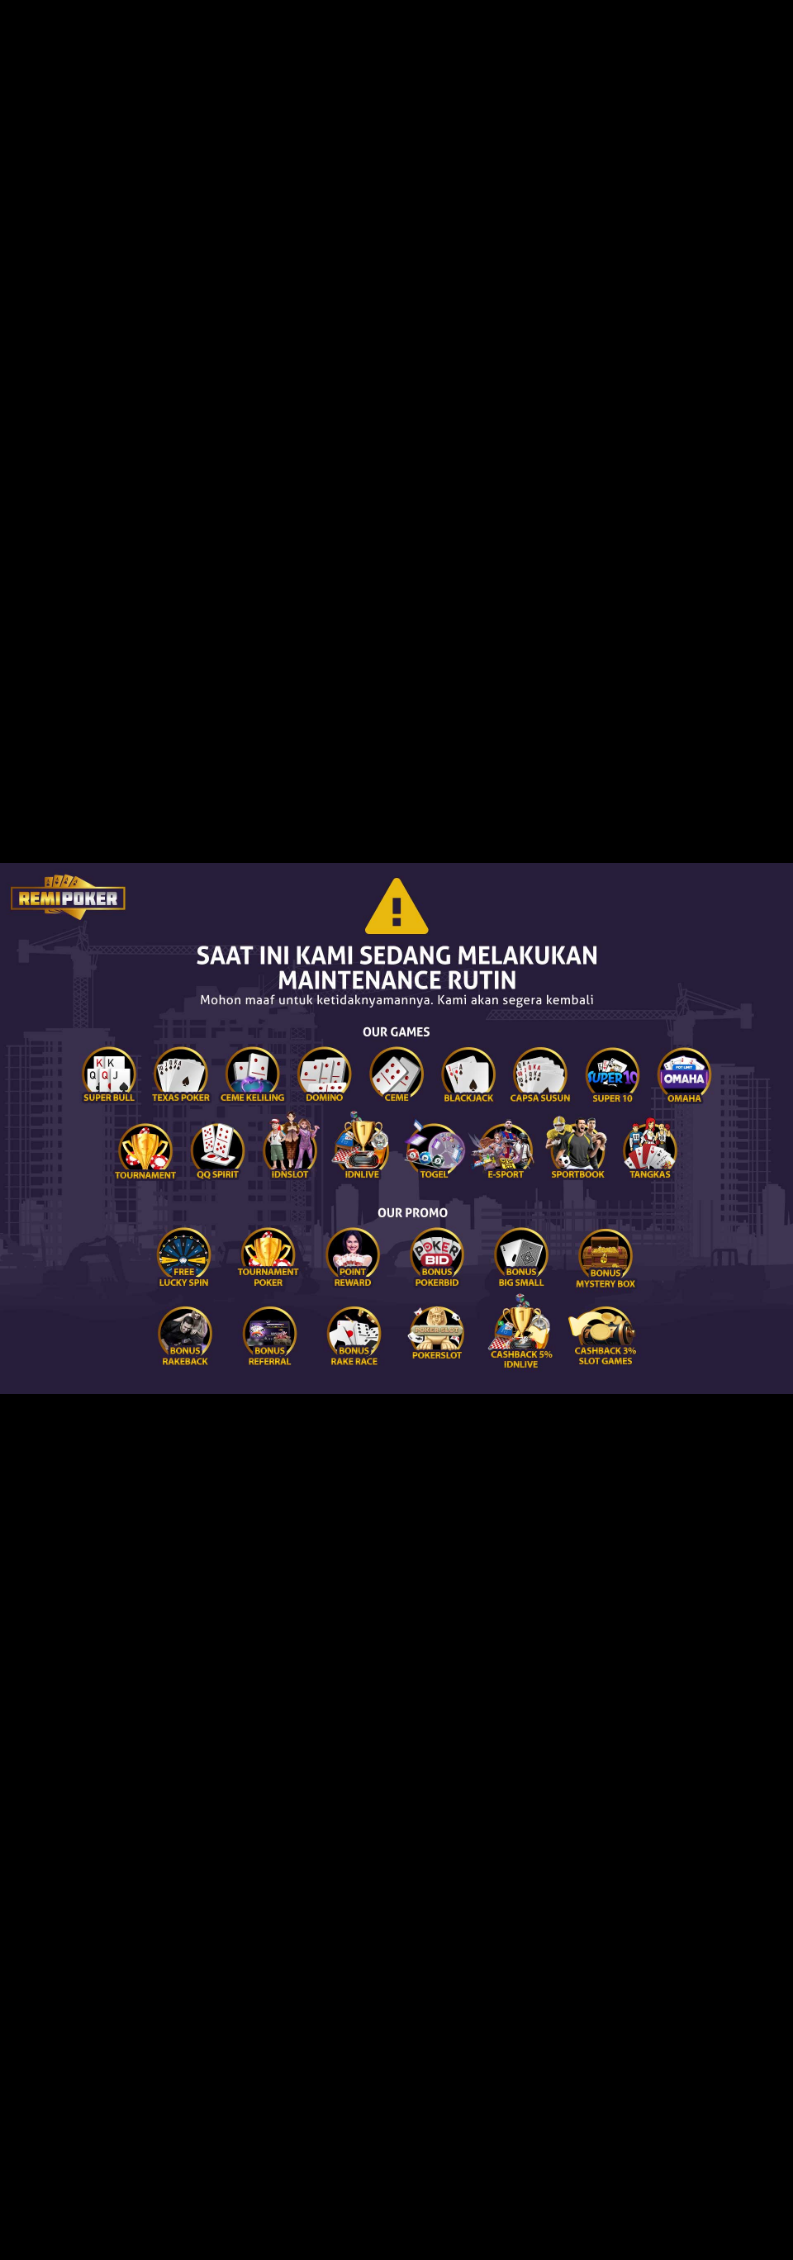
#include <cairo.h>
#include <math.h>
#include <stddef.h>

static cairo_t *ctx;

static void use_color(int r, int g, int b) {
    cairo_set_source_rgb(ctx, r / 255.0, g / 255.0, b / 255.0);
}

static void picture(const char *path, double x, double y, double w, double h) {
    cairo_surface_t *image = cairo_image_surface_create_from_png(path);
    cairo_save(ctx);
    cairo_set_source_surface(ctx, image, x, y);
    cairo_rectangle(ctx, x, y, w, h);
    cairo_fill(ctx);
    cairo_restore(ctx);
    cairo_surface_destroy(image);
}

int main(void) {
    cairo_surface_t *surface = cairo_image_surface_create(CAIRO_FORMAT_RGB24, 793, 2260);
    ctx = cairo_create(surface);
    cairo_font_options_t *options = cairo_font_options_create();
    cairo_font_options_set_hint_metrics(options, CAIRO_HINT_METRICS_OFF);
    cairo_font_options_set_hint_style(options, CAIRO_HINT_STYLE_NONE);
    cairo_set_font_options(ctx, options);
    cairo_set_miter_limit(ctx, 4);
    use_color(0, 0, 0);
    cairo_paint(ctx);
    picture("img1.png", 0, 863, 793, 531);
    cairo_surface_write_to_png(surface, "result.png");
    cairo_font_options_destroy(options);
    cairo_destroy(ctx);
    cairo_surface_destroy(surface);
    return 0;
}
